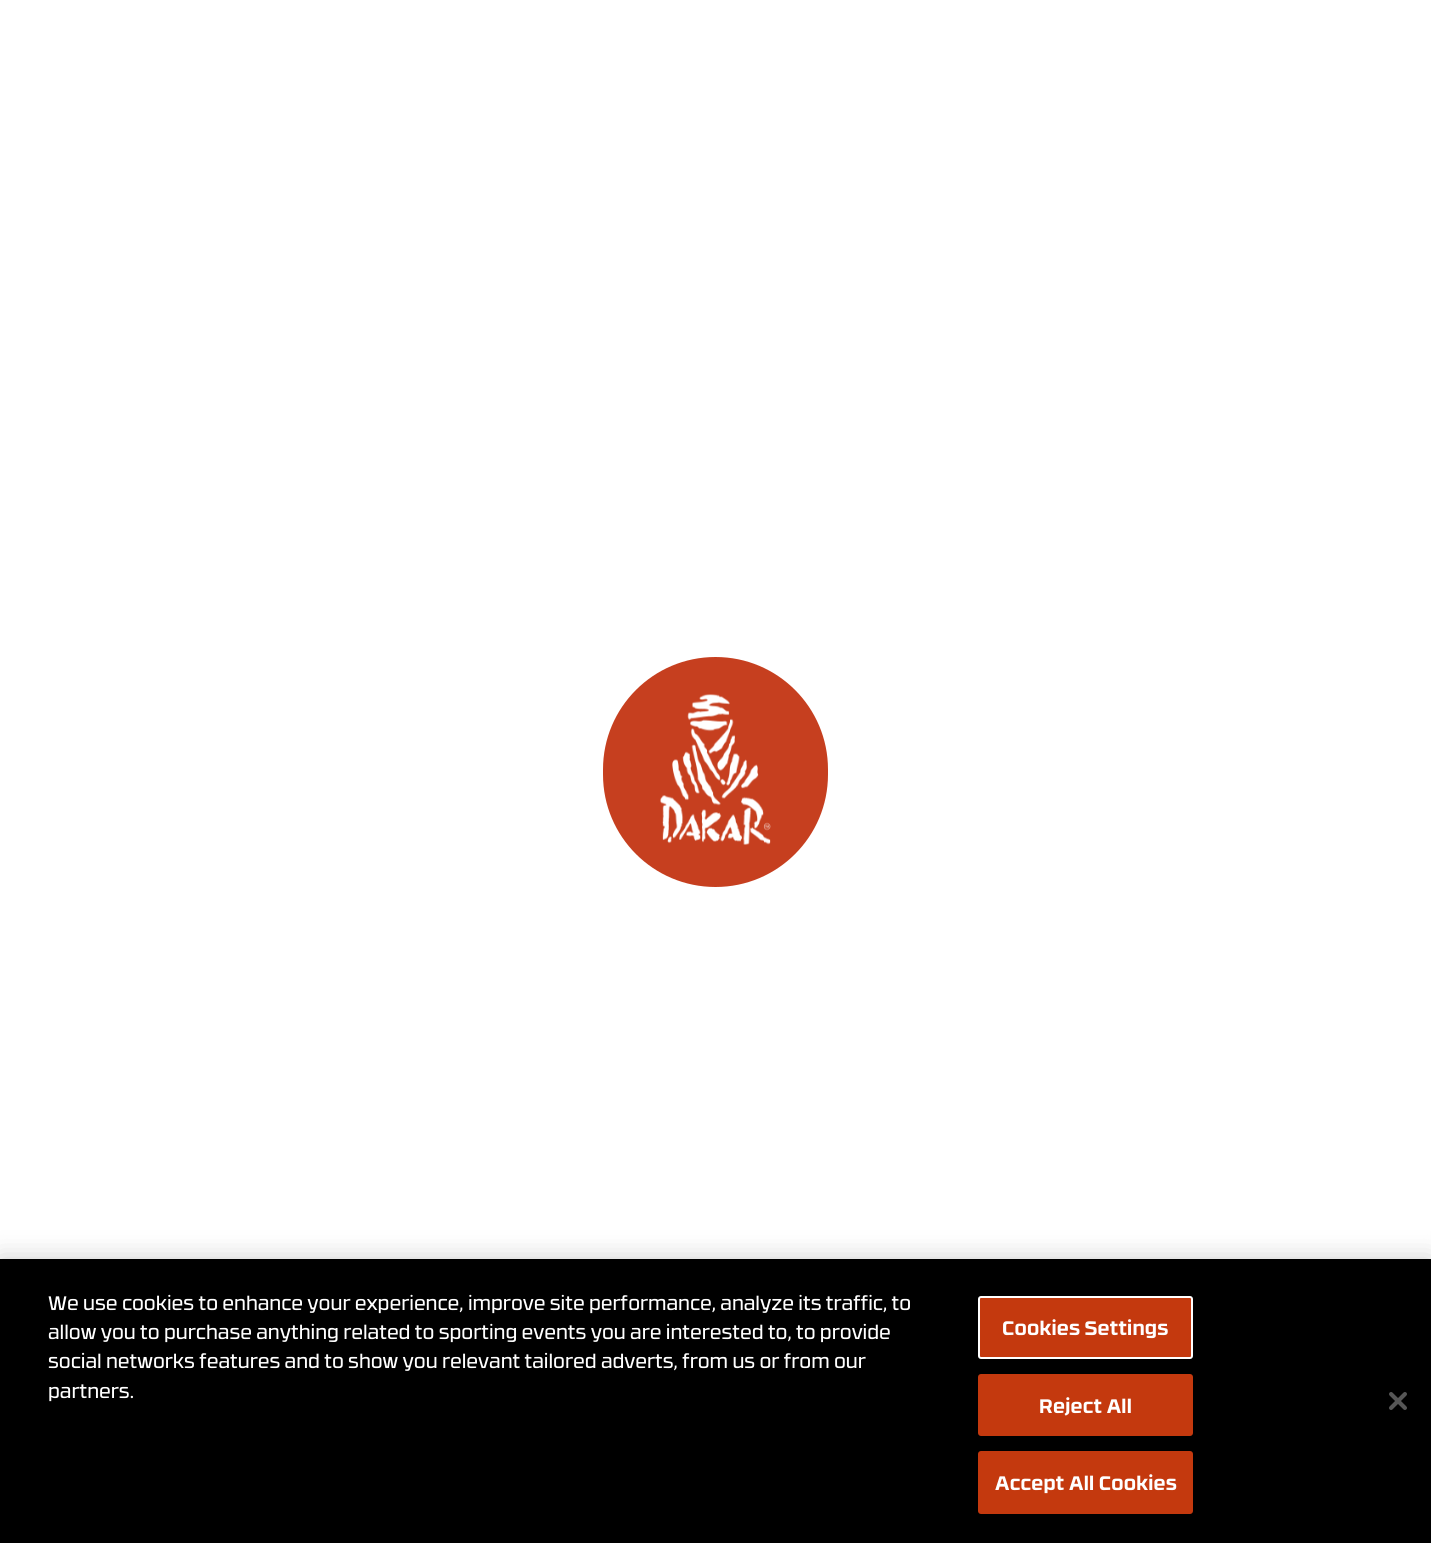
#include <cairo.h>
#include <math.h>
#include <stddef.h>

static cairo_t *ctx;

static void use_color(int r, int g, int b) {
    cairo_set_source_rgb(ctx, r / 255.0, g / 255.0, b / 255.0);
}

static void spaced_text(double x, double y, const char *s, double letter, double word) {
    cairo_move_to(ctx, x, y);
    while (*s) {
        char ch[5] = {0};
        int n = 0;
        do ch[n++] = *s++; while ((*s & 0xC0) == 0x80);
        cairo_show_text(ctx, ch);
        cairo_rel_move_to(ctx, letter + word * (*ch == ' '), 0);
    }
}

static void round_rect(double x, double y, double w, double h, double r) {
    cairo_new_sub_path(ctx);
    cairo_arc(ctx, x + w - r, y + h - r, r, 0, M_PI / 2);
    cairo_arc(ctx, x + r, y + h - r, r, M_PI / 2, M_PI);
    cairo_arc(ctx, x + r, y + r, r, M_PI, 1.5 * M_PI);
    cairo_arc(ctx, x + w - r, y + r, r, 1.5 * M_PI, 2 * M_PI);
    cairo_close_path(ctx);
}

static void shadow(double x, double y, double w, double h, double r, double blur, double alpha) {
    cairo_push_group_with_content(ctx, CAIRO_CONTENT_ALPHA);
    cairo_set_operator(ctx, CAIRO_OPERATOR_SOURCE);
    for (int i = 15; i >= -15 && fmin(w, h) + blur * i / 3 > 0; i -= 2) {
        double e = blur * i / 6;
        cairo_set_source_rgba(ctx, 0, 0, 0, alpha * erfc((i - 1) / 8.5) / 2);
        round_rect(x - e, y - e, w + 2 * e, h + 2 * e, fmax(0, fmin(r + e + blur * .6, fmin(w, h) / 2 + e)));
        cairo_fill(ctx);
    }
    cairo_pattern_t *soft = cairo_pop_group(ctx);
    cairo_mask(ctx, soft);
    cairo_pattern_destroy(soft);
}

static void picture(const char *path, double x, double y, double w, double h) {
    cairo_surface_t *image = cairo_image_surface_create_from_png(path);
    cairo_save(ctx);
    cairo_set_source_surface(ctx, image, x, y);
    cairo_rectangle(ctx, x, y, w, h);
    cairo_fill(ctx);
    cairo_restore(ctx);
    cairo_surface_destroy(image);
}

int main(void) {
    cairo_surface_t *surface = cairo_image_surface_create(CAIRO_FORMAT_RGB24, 1431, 1543);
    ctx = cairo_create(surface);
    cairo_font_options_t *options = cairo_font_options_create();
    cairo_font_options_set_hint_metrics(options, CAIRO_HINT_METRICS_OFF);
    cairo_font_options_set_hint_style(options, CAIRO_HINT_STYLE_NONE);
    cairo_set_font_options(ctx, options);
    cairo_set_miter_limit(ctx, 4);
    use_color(255, 255, 255);
    cairo_paint(ctx);
    use_color(198, 63, 31);
    round_rect(603, 657, 225, 230, 112.5);
    cairo_fill(ctx);
    picture("img1.png", 660, 694, 111, 151);
    use_color(0, 0, 0);
    shadow(0, 1259, 1431, 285, 0, 13.5, 0.2);
    use_color(0, 0, 0);
    cairo_rectangle(ctx, 0, 1259, 1431, 284);
    cairo_fill(ctx);
    cairo_select_font_face(ctx, "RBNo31", CAIRO_FONT_SLANT_NORMAL, CAIRO_FONT_WEIGHT_NORMAL);
    cairo_set_font_size(ctx, 19.5);
    use_color(255, 255, 255);
    cairo_move_to(ctx, 48, 1310);
    cairo_show_text(ctx, "We use cookies to enhance your experience, improve site performance, analyze its traffic, to");
    cairo_move_to(ctx, 48, 1339);
    cairo_show_text(ctx, "allow you to purchase anything related to sporting events you are interested to, to provide");
    cairo_move_to(ctx, 48, 1368);
    cairo_show_text(ctx, "social networks features and to show you relevant tailored adverts, from us or from our");
    cairo_move_to(ctx, 48, 1398);
    cairo_show_text(ctx, "partners.");
    use_color(196, 57, 14);
    round_rect(979, 1297, 213, 61, 2);
    cairo_fill_preserve(ctx);
    use_color(255, 255, 255);
    cairo_stroke(ctx);
    cairo_select_font_face(ctx, "RBNo31", CAIRO_FONT_SLANT_NORMAL, CAIRO_FONT_WEIGHT_BOLD);
    spaced_text(1002, 1335, "Cookies Settings", 0.25, 0);
    use_color(196, 57, 14);
    round_rect(979, 1375, 213, 60, 2);
    cairo_fill_preserve(ctx);
    cairo_stroke(ctx);
    use_color(255, 255, 255);
    spaced_text(1039, 1413, "Reject All", 0.25, 0);
    use_color(196, 57, 14);
    round_rect(979, 1452, 213, 61, 2);
    cairo_fill_preserve(ctx);
    cairo_stroke(ctx);
    use_color(255, 255, 255);
    spaced_text(995, 1490, "Accept All Cookies", 0.25, 0);
    picture("img2.png", 1389, 1392, 18, 18);
    cairo_surface_write_to_png(surface, "result.png");
    cairo_font_options_destroy(options);
    cairo_destroy(ctx);
    cairo_surface_destroy(surface);
    return 0;
}
